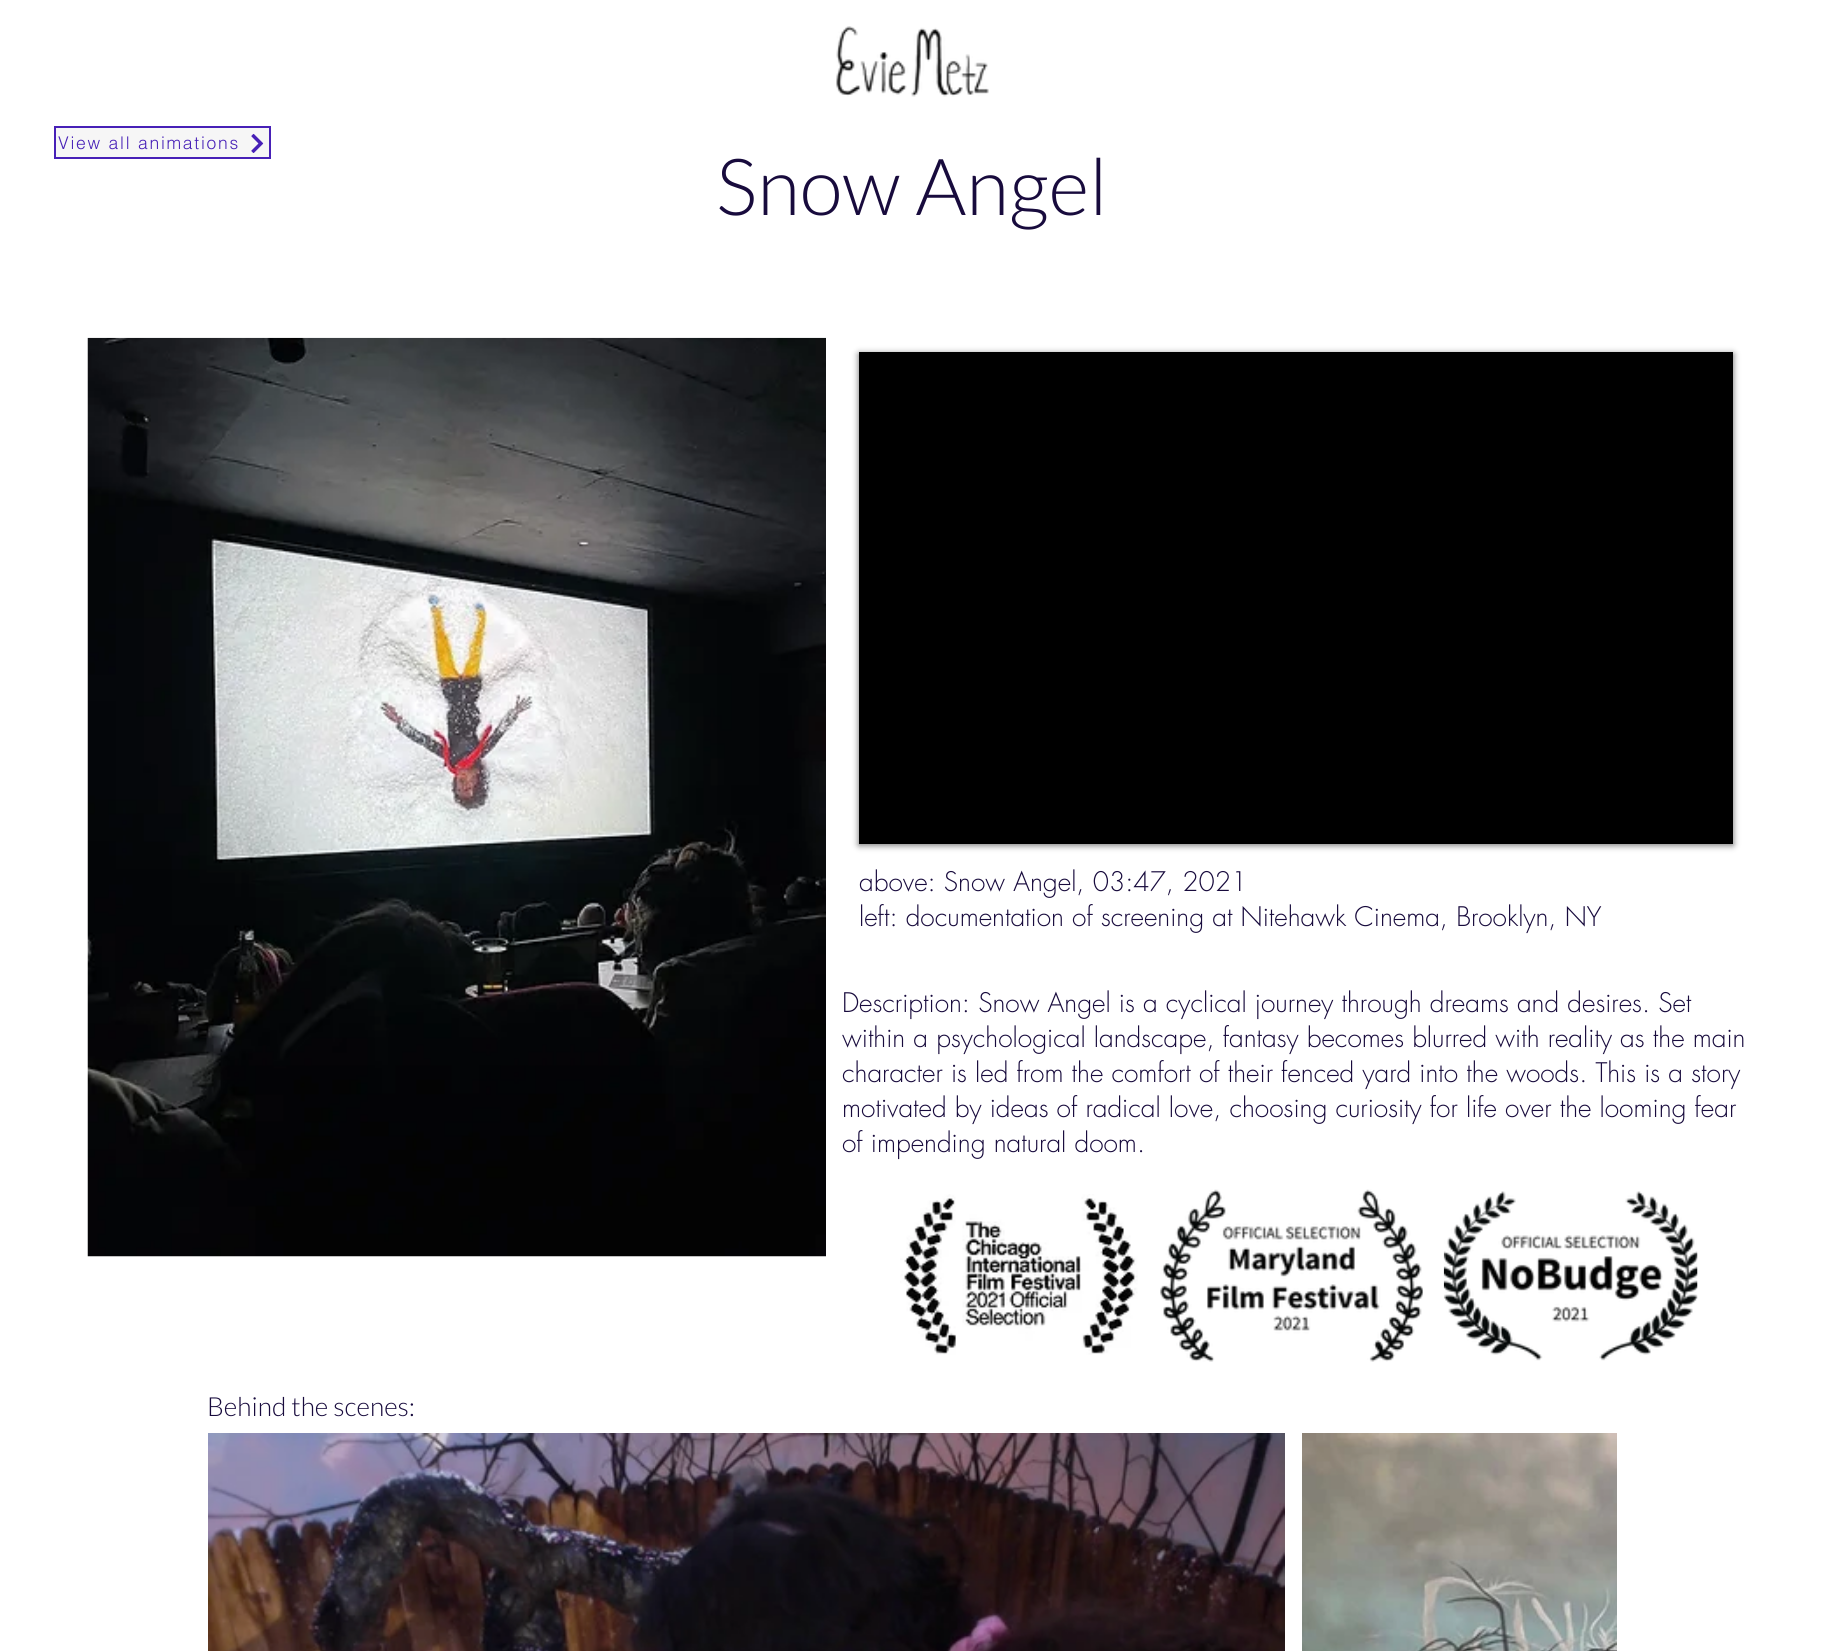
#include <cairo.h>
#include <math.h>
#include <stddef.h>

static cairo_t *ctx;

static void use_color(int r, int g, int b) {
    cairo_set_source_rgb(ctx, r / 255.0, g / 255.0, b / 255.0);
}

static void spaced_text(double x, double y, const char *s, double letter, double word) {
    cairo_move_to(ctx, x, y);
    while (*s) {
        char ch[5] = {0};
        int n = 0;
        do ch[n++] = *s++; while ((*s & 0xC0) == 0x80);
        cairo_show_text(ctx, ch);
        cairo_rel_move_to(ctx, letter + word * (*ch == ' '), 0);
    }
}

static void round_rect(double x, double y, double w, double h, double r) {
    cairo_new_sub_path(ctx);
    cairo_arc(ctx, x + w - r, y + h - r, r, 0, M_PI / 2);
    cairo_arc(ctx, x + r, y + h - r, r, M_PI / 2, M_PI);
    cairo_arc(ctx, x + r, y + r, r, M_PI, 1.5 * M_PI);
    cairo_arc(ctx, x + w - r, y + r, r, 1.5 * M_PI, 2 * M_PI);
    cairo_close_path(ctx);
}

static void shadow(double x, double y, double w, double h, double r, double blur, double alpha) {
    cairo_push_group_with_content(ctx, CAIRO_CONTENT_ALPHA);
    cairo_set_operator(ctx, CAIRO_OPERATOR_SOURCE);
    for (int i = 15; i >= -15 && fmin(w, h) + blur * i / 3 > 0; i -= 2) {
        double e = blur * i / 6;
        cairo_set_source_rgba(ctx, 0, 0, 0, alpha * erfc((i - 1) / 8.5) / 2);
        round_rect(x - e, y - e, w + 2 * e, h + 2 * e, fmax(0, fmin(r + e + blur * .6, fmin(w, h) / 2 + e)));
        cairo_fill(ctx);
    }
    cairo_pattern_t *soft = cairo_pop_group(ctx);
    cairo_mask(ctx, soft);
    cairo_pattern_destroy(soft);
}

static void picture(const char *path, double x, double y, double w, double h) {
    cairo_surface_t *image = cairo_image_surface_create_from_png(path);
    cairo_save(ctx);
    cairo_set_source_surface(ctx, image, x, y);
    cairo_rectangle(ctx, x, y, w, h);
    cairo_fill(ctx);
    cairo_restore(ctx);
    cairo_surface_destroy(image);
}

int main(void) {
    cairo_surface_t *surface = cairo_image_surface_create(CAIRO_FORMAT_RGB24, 1823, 1651);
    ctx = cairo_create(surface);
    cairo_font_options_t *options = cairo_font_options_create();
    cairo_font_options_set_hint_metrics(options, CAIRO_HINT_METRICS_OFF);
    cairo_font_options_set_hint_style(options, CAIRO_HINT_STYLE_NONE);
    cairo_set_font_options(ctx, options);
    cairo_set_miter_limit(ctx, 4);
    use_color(255, 255, 255);
    cairo_paint(ctx);
    picture("img1.png", 836, 26, 153, 71);
    use_color(246, 246, 246);
    cairo_rectangle(ctx, 55, 127, 215, 31);
    cairo_fill_preserve(ctx);
    use_color(71, 32, 183);
    cairo_stroke(ctx);
    cairo_select_font_face(ctx, "helvetica Light", CAIRO_FONT_SLANT_NORMAL, CAIRO_FONT_WEIGHT_NORMAL);
    cairo_set_font_size(ctx, 17.5);
    spaced_text(58, 149, "View all animations", 1.75, 0);
    picture("img2.png", 251, 133, 13, 20);
    cairo_select_font_face(ctx, "Lato Light", CAIRO_FONT_SLANT_NORMAL, CAIRO_FONT_WEIGHT_NORMAL);
    cairo_set_font_size(ctx, 78.75);
    use_color(24, 11, 61);
    cairo_move_to(ctx, 716, 215);
    cairo_show_text(ctx, "Snow Angel");
    picture("img3.png", 87, 337, 739, 920);
    use_color(0, 0, 0);
    shadow(859, 354, 874, 491, 0, 3.5, 0.6);
    use_color(0, 0, 0);
    cairo_rectangle(ctx, 859, 352, 874, 492);
    cairo_fill(ctx);
    cairo_select_font_face(ctx, "futura Light", CAIRO_FONT_SLANT_NORMAL, CAIRO_FONT_WEIGHT_NORMAL);
    cairo_set_font_size(ctx, 26.25);
    use_color(24, 11, 61);
    cairo_move_to(ctx, 859, 891);
    cairo_show_text(ctx, "above: Snow Angel, 03:47, 2021");
    cairo_move_to(ctx, 859, 926);
    cairo_show_text(ctx, "left: documentation of screening at Nitehawk Cinema, Brooklyn, NY");
    cairo_move_to(ctx, 842, 1012);
    cairo_show_text(ctx, "Description: Snow Angel is a cyclical journey through dreams and desires. Set");
    cairo_move_to(ctx, 842, 1047);
    cairo_show_text(ctx, "within a psychological landscape, fantasy becomes blurred with reality as the main");
    cairo_move_to(ctx, 842, 1082);
    cairo_show_text(ctx, "character is led from the comfort of their fenced yard into the woods. This is a story");
    cairo_move_to(ctx, 842, 1117);
    cairo_show_text(ctx, "motivated by ideas of radical love, choosing curiosity for life over the looming fear");
    cairo_move_to(ctx, 842, 1152);
    cairo_show_text(ctx, "of impending natural doom.");
    picture("img4.png", 900, 1194, 238, 161);
    picture("img5.png", 1160, 1189, 263, 173);
    picture("img6.png", 1443, 1191, 255, 170);
    cairo_select_font_face(ctx, "Lato Light", CAIRO_FONT_SLANT_NORMAL, CAIRO_FONT_WEIGHT_NORMAL);
    cairo_move_to(ctx, 207, 1416);
    cairo_show_text(ctx, "Behind the scenes:");
    picture("img7.png", 208, 1433, 1077, 218);
    picture("img8.png", 1302, 1433, 315, 218);
    cairo_surface_write_to_png(surface, "result.png");
    cairo_font_options_destroy(options);
    cairo_destroy(ctx);
    cairo_surface_destroy(surface);
    return 0;
}
